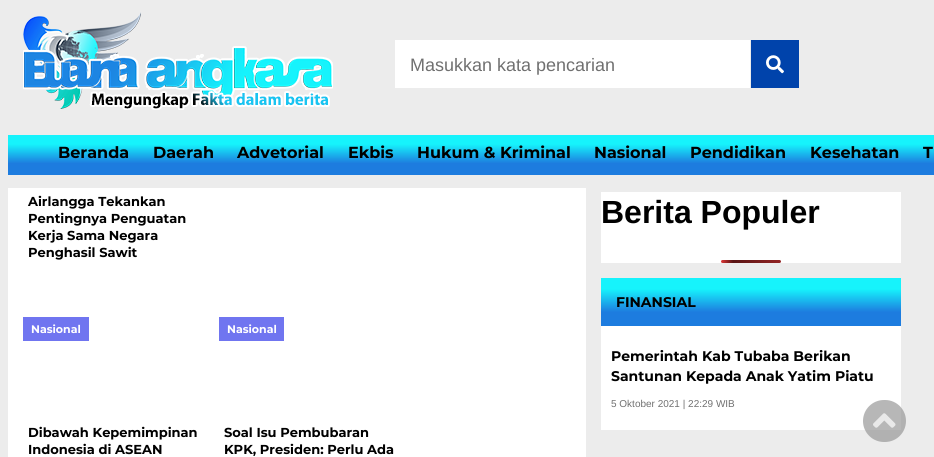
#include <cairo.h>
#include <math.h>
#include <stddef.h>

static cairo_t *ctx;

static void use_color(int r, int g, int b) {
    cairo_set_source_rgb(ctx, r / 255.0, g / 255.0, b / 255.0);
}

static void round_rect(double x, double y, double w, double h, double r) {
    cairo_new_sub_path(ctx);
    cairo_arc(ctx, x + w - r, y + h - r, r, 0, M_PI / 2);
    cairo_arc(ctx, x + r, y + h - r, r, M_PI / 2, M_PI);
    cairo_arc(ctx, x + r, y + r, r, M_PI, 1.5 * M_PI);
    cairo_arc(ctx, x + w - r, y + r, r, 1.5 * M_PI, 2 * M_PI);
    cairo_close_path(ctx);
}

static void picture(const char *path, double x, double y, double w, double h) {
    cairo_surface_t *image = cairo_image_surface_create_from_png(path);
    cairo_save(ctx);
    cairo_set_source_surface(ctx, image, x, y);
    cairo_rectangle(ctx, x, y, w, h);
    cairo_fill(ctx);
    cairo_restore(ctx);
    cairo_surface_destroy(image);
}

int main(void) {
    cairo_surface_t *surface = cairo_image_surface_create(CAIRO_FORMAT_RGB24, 934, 457);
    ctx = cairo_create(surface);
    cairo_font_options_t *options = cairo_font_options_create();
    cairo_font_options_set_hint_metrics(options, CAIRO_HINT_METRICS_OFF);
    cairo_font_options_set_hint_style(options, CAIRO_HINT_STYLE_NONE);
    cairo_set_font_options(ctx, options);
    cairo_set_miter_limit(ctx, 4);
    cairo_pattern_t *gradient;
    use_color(236, 236, 236);
    cairo_paint(ctx);
    picture("img1.png", 23, 12, 310, 98);
    use_color(255, 255, 255);
    cairo_rectangle(ctx, 395, 40, 355, 48);
    cairo_fill(ctx);
    cairo_select_font_face(ctx, "Liberation Sans", CAIRO_FONT_SLANT_NORMAL, CAIRO_FONT_WEIGHT_NORMAL);
    cairo_set_font_size(ctx, 18);
    use_color(112, 112, 112);
    cairo_move_to(ctx, 410, 71);
    cairo_show_text(ctx, "Masukkan kata pencarian");
    use_color(0, 67, 171);
    cairo_rectangle(ctx, 751, 40, 48, 48);
    cairo_fill(ctx);
    picture("img2.png", 766, 55, 18, 19);
    gradient = cairo_pattern_create_linear(475, 135, 475, 175);
    cairo_pattern_add_color_stop_rgba(gradient, 0.23, 0.086, 0.953, 0.988, 1);
    cairo_pattern_add_color_stop_rgba(gradient, 0.71, 0.114, 0.486, 0.875, 1);
    cairo_set_source(ctx, gradient);
    cairo_pattern_destroy(gradient);
    cairo_rectangle(ctx, 8, 135, 926, 40);
    cairo_fill(ctx);
    cairo_select_font_face(ctx, "Montserrat", CAIRO_FONT_SLANT_NORMAL, CAIRO_FONT_WEIGHT_BOLD);
    cairo_set_font_size(ctx, 16);
    use_color(0, 0, 0);
    cairo_move_to(ctx, 58, 158);
    cairo_show_text(ctx, "Beranda");
    cairo_move_to(ctx, 153, 158);
    cairo_show_text(ctx, "Daerah");
    cairo_move_to(ctx, 237, 158);
    cairo_show_text(ctx, "Advetorial");
    cairo_move_to(ctx, 348, 158);
    cairo_show_text(ctx, "Ekbis");
    cairo_move_to(ctx, 417, 158);
    cairo_show_text(ctx, "Hukum & Kriminal");
    cairo_move_to(ctx, 594, 158);
    cairo_show_text(ctx, "Nasional");
    cairo_move_to(ctx, 690, 158);
    cairo_show_text(ctx, "Pendidikan");
    cairo_move_to(ctx, 810, 158);
    cairo_show_text(ctx, "Kesehatan");
    cairo_move_to(ctx, 923, 158);
    cairo_show_text(ctx, "T");
    use_color(255, 255, 255);
    cairo_rectangle(ctx, 8, 188, 578, 269);
    cairo_fill(ctx);
    cairo_set_font_size(ctx, 13);
    use_color(0, 0, 0);
    cairo_move_to(ctx, 28, 206);
    cairo_show_text(ctx, "Airlangga Tekankan");
    cairo_move_to(ctx, 28, 223);
    cairo_show_text(ctx, "Pentingnya Penguatan");
    cairo_move_to(ctx, 28, 240);
    cairo_show_text(ctx, "Kerja Sama Negara");
    cairo_move_to(ctx, 28, 257);
    cairo_show_text(ctx, "Penghasil Sawit");
    use_color(112, 117, 240);
    cairo_rectangle(ctx, 23, 317, 66, 24);
    cairo_fill(ctx);
    cairo_set_font_size(ctx, 11);
    use_color(255, 255, 255);
    cairo_move_to(ctx, 31, 333);
    cairo_show_text(ctx, "Nasional");
    cairo_set_font_size(ctx, 13);
    use_color(0, 0, 0);
    cairo_move_to(ctx, 28, 437);
    cairo_show_text(ctx, "Dibawah Kepemimpinan");
    cairo_move_to(ctx, 28, 454);
    cairo_show_text(ctx, "Indonesia di ASEAN");
    use_color(112, 117, 240);
    cairo_rectangle(ctx, 219, 317, 65, 24);
    cairo_fill(ctx);
    cairo_set_font_size(ctx, 11);
    use_color(255, 255, 255);
    cairo_move_to(ctx, 227, 333);
    cairo_show_text(ctx, "Nasional");
    cairo_set_font_size(ctx, 13);
    use_color(0, 0, 0);
    cairo_move_to(ctx, 224, 437);
    cairo_show_text(ctx, "Soal Isu Pembubaran");
    cairo_move_to(ctx, 224, 454);
    cairo_show_text(ctx, "KPK, Presiden: Perlu Ada");
    use_color(255, 255, 255);
    cairo_rectangle(ctx, 601, 192, 300, 71);
    cairo_fill(ctx);
    cairo_select_font_face(ctx, "Liberation Sans", CAIRO_FONT_SLANT_NORMAL, CAIRO_FONT_WEIGHT_BOLD);
    cairo_set_font_size(ctx, 32);
    use_color(0, 0, 0);
    cairo_move_to(ctx, 601, 223);
    cairo_show_text(ctx, "Berita Populer");
    gradient = cairo_pattern_create_linear(721, 262, 841, 262);
    cairo_pattern_add_color_stop_rgba(gradient, 0, 0.867, 0.216, 0.216, 1);
    cairo_pattern_add_color_stop_rgba(gradient, 0.1, 0.341, 0.075, 0.075, 1);
    cairo_pattern_add_color_stop_rgba(gradient, 1, 0.867, 0.216, 0.216, 1);
    cairo_set_source(ctx, gradient);
    cairo_pattern_destroy(gradient);
    round_rect(721, 260, 60, 3, 1.5);
    cairo_fill(ctx);
    use_color(255, 255, 255);
    cairo_rectangle(ctx, 601, 326, 300, 104);
    cairo_fill(ctx);
    gradient = cairo_pattern_create_linear(751, 278, 751, 326);
    cairo_pattern_add_color_stop_rgba(gradient, 0.23, 0.086, 0.953, 0.988, 1);
    cairo_pattern_add_color_stop_rgba(gradient, 0.71, 0.114, 0.486, 0.875, 1);
    cairo_set_source(ctx, gradient);
    cairo_pattern_destroy(gradient);
    cairo_rectangle(ctx, 601, 278, 300, 48);
    cairo_fill(ctx);
    cairo_select_font_face(ctx, "Montserrat", CAIRO_FONT_SLANT_NORMAL, CAIRO_FONT_WEIGHT_BOLD);
    cairo_set_font_size(ctx, 14);
    use_color(0, 0, 0);
    cairo_move_to(ctx, 616, 307);
    cairo_show_text(ctx, "FINANSIAL");
    cairo_move_to(ctx, 611, 361);
    cairo_show_text(ctx, "Pemerintah Kab Tubaba Berikan");
    cairo_move_to(ctx, 611, 381);
    cairo_show_text(ctx, "Santunan Kepada Anak Yatim Piatu");
    cairo_select_font_face(ctx, "Liberation Sans", CAIRO_FONT_SLANT_NORMAL, CAIRO_FONT_WEIGHT_NORMAL);
    cairo_set_font_size(ctx, 10);
    use_color(112, 112, 112);
    cairo_move_to(ctx, 611, 407);
    cairo_show_text(ctx, "5 Oktober 2021 | 22:29 WIB");
    cairo_set_source_rgba(ctx, 0.6, 0.6, 0.6, 0.7);
    round_rect(863, 400, 43, 42, 21);
    cairo_fill(ctx);
    picture("img3.png", 873, 413, 23, 15);
    cairo_surface_write_to_png(surface, "result.png");
    cairo_font_options_destroy(options);
    cairo_destroy(ctx);
    cairo_surface_destroy(surface);
    return 0;
}
